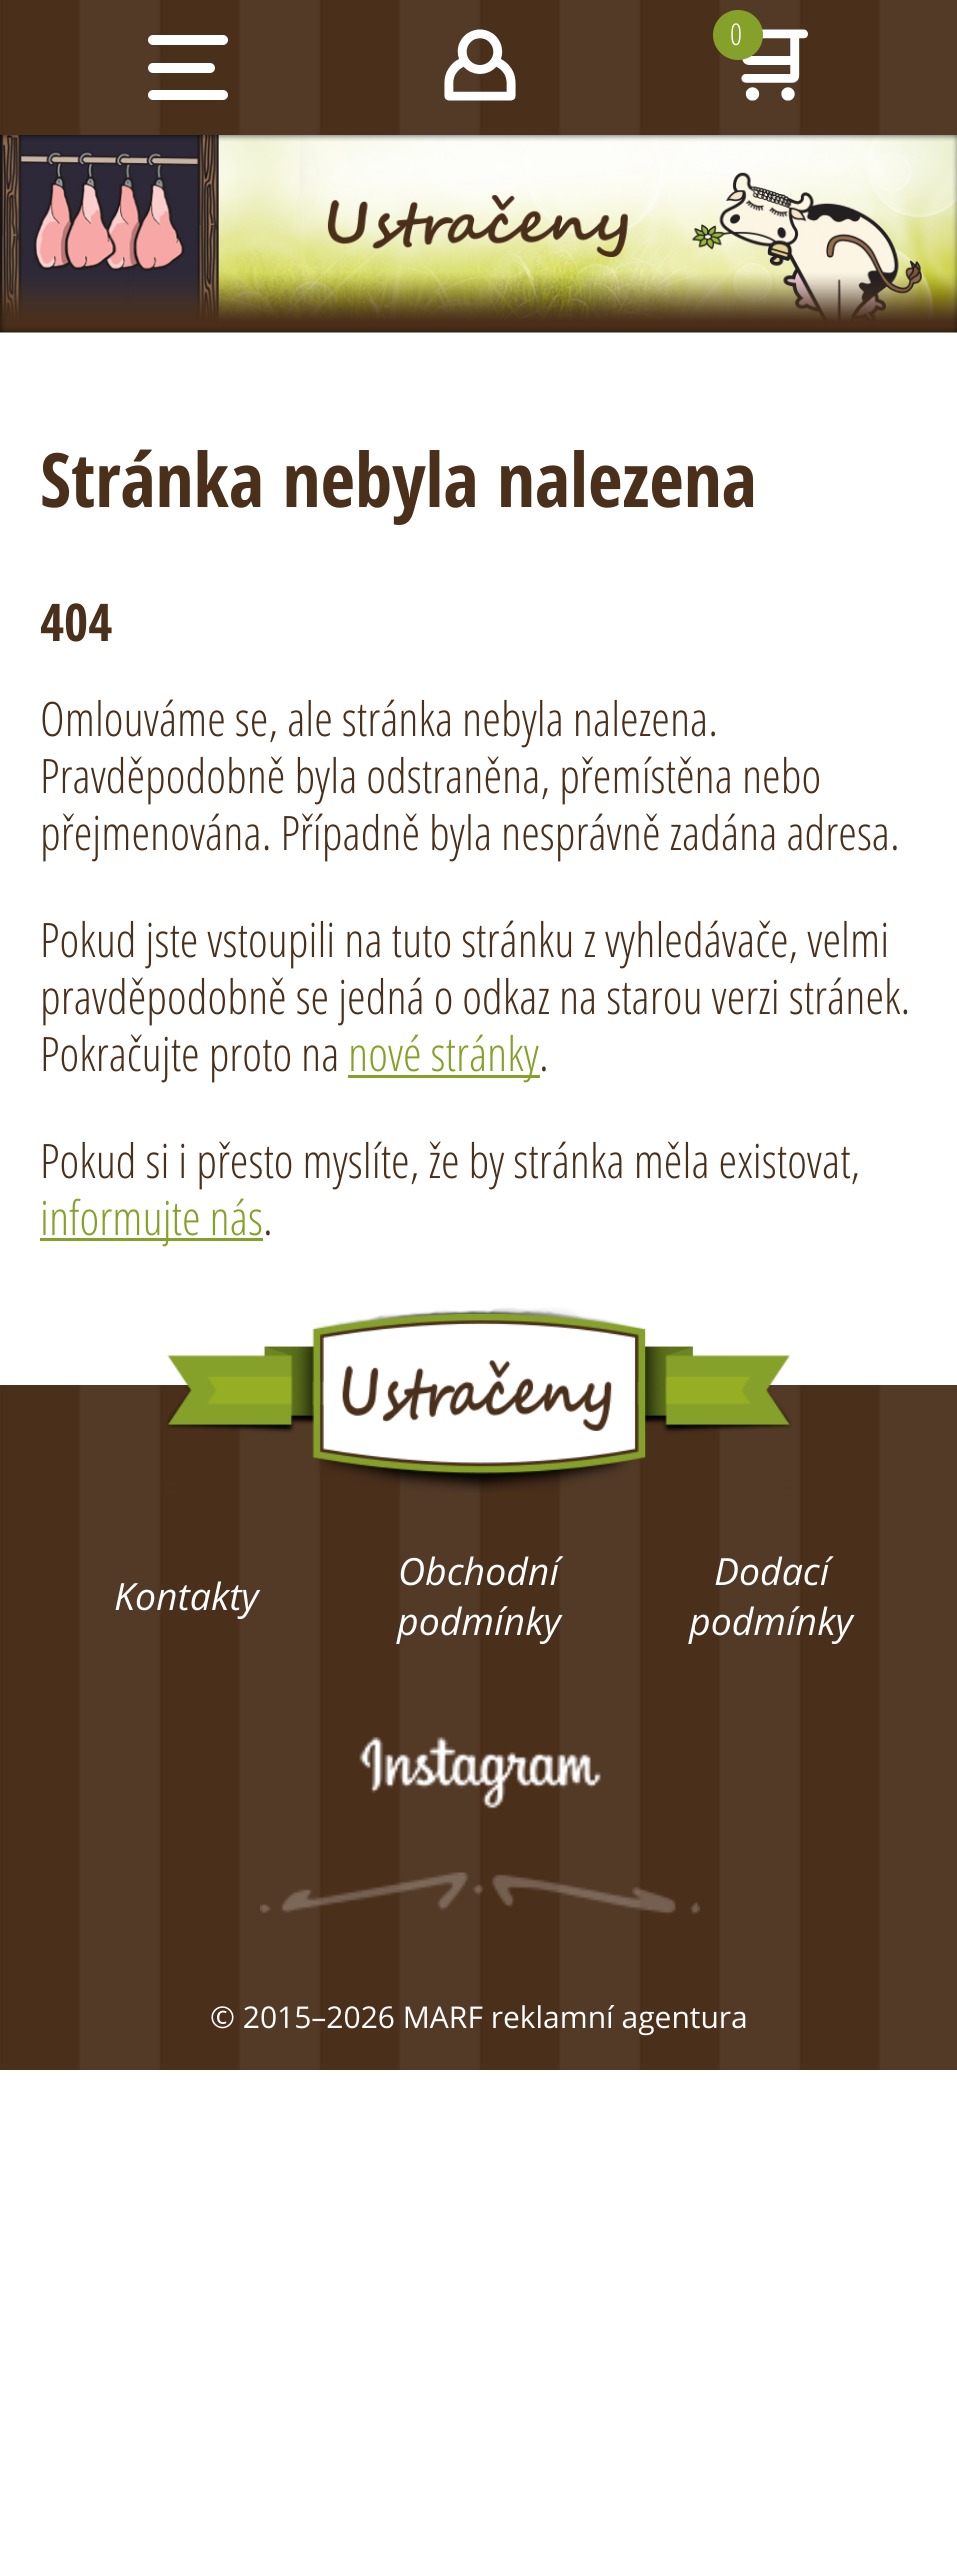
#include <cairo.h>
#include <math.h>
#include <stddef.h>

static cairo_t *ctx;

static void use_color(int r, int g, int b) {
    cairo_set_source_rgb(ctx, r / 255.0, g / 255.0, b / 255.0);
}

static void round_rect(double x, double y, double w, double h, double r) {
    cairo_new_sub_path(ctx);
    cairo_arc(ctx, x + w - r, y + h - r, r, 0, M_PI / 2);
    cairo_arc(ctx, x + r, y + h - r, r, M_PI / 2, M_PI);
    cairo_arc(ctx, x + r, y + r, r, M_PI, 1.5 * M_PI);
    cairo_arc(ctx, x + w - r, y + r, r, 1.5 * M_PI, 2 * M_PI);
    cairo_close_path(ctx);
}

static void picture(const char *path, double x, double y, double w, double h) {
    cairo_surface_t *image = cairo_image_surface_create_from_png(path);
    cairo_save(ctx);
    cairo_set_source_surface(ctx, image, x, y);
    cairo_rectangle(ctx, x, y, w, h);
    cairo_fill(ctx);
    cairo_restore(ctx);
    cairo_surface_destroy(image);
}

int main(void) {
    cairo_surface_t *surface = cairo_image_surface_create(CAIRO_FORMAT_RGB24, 957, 2573);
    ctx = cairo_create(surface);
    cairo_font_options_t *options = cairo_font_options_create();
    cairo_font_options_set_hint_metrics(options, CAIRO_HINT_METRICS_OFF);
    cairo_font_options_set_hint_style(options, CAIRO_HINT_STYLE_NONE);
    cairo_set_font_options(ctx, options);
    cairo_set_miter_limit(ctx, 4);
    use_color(255, 255, 255);
    cairo_paint(ctx);
    picture("img1.png", 0, 0, 957, 135);
    use_color(255, 255, 255);
    round_rect(148, 35, 80, 10, 5);
    cairo_fill(ctx);
    round_rect(148, 63, 67, 10, 5);
    cairo_fill(ctx);
    round_rect(148, 90, 80, 10, 5);
    cairo_fill(ctx);
    picture("img2.png", 444, 29, 72, 72);
    picture("img3.png", 741, 29, 67, 72);
    use_color(134, 161, 42);
    cairo_arc(ctx, 738, 35, 25, 0, 2 * M_PI);
    cairo_fill(ctx);
    cairo_select_font_face(ctx, "Open Sans Light", CAIRO_FONT_SLANT_NORMAL, CAIRO_FONT_WEIGHT_NORMAL);
    cairo_set_font_size(ctx, 30);
    use_color(255, 255, 255);
    cairo_move_to(ctx, 730, 45);
    cairo_show_text(ctx, "0");
    picture("img4.png", 0, 135, 957, 198);
    cairo_select_font_face(ctx, "Open Sans Condensed", CAIRO_FONT_SLANT_NORMAL, CAIRO_FONT_WEIGHT_BOLD);
    cairo_set_font_size(ctx, 75);
    use_color(74, 47, 27);
    cairo_move_to(ctx, 40, 507);
    cairo_show_text(ctx, "Stránka nebyla nalezena");
    cairo_set_font_size(ctx, 52);
    cairo_move_to(ctx, 40, 641);
    cairo_show_text(ctx, "404");
    cairo_select_font_face(ctx, "Open Sans Light", CAIRO_FONT_SLANT_NORMAL, CAIRO_FONT_WEIGHT_NORMAL);
    cairo_set_font_size(ctx, 47.5);
    cairo_move_to(ctx, 40, 736);
    cairo_show_text(ctx, "Omlouváme se, ale stránka nebyla nalezena.");
    cairo_move_to(ctx, 40, 793);
    cairo_show_text(ctx, "Pravděpodobně byla odstraněna, přemístěna nebo");
    cairo_move_to(ctx, 40, 850);
    cairo_show_text(ctx, "přejmenována. Případně byla nesprávně zadána adresa.");
    cairo_move_to(ctx, 40, 957);
    cairo_show_text(ctx, "Pokud jste vstoupili na tuto stránku z vyhledávače, velmi");
    cairo_move_to(ctx, 40, 1014);
    cairo_show_text(ctx, "pravděpodobně se jedná o odkaz na starou verzi stránek.");
    cairo_move_to(ctx, 40, 1071);
    cairo_show_text(ctx, "Pokračujte proto na");
    use_color(134, 161, 42);
    cairo_rectangle(ctx, 348, 1075, 192, 3);
    cairo_fill(ctx);
    cairo_move_to(ctx, 348, 1071);
    cairo_show_text(ctx, "nové stránky");
    use_color(74, 47, 27);
    cairo_move_to(ctx, 539, 1071);
    cairo_show_text(ctx, ".");
    cairo_move_to(ctx, 40, 1178);
    cairo_show_text(ctx, "Pokud si i přesto myslíte, že by stránka měla existovat,");
    use_color(134, 161, 42);
    cairo_rectangle(ctx, 40, 1238, 223, 3);
    cairo_fill(ctx);
    cairo_move_to(ctx, 40, 1235);
    cairo_show_text(ctx, "informujte nás");
    use_color(74, 47, 27);
    cairo_move_to(ctx, 263, 1235);
    cairo_show_text(ctx, ".");
    picture("img5.png", 0, 1385, 957, 685);
    picture("img6.png", 166, 1307, 626, 186);
    cairo_select_font_face(ctx, "Open Sans", CAIRO_FONT_SLANT_ITALIC, CAIRO_FONT_WEIGHT_NORMAL);
    cairo_set_font_size(ctx, 37.5);
    use_color(255, 255, 255);
    cairo_move_to(ctx, 114, 1610);
    cairo_show_text(ctx, "Kontakty");
    cairo_move_to(ctx, 398, 1585);
    cairo_show_text(ctx, "Obchodní");
    cairo_move_to(ctx, 397, 1635);
    cairo_show_text(ctx, "podmínky");
    cairo_move_to(ctx, 714, 1585);
    cairo_show_text(ctx, "Dodací");
    cairo_move_to(ctx, 689, 1635);
    cairo_show_text(ctx, "podmínky");
    picture("img7.png", 359, 1736, 242, 73);
    picture("img8.png", 260, 1872, 440, 43);
    cairo_select_font_face(ctx, "Open Sans", CAIRO_FONT_SLANT_NORMAL, CAIRO_FONT_WEIGHT_NORMAL);
    cairo_set_font_size(ctx, 30);
    cairo_move_to(ctx, 210, 2028);
    cairo_show_text(ctx, "© 2015–2026 MARF reklamní agentura");
    cairo_surface_write_to_png(surface, "result.png");
    cairo_font_options_destroy(options);
    cairo_destroy(ctx);
    cairo_surface_destroy(surface);
    return 0;
}
